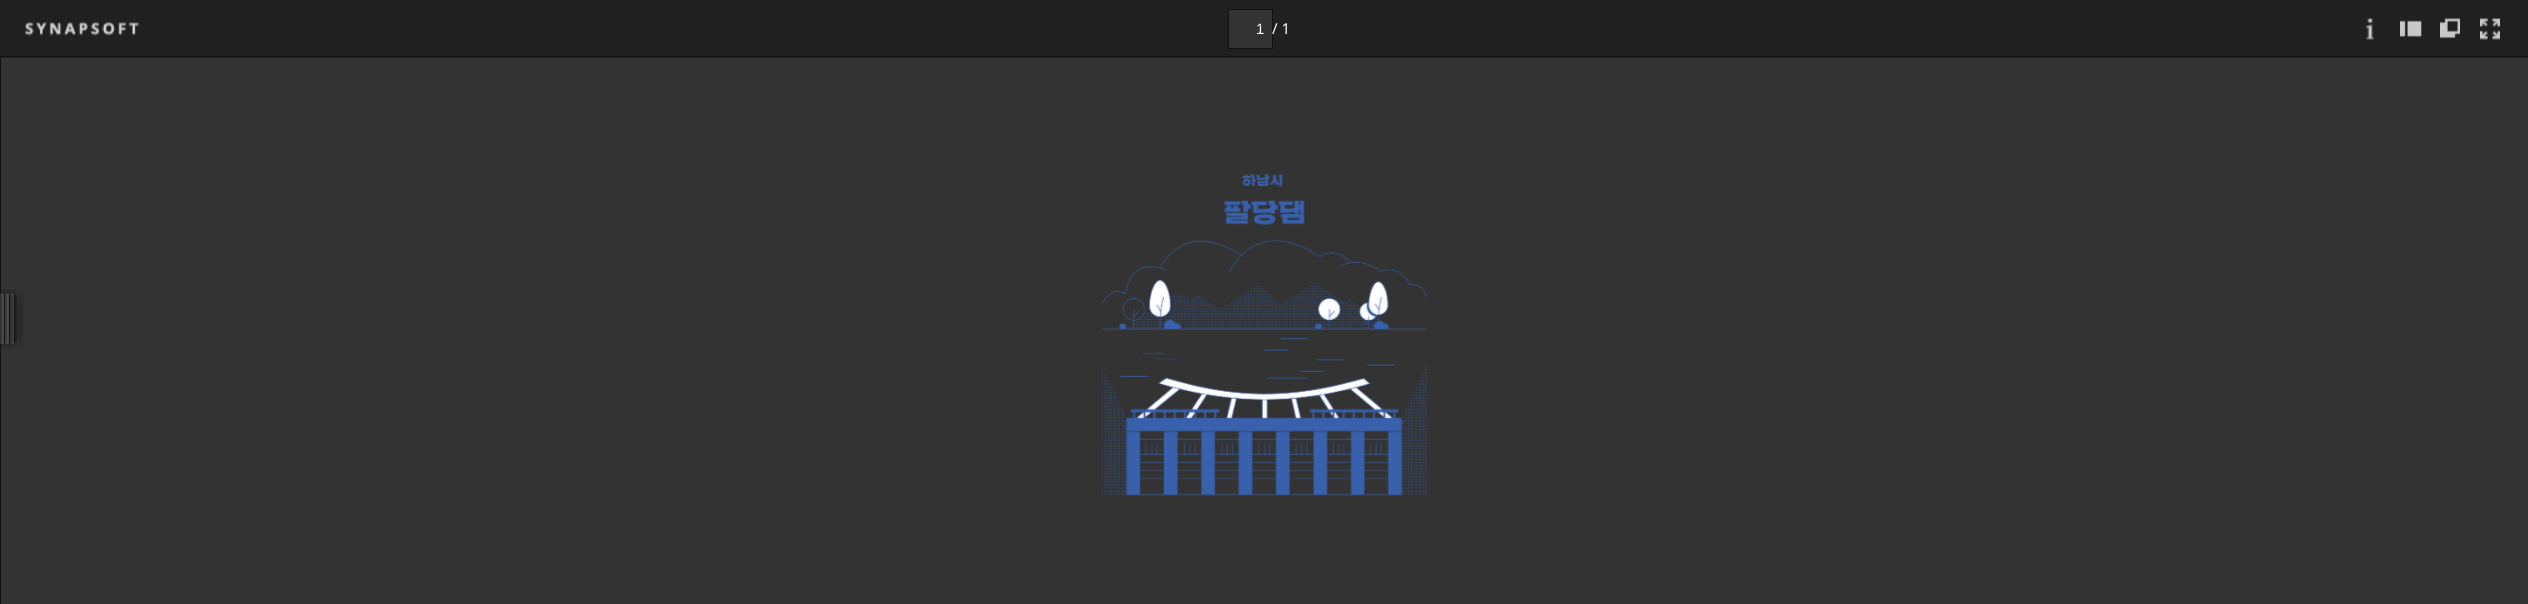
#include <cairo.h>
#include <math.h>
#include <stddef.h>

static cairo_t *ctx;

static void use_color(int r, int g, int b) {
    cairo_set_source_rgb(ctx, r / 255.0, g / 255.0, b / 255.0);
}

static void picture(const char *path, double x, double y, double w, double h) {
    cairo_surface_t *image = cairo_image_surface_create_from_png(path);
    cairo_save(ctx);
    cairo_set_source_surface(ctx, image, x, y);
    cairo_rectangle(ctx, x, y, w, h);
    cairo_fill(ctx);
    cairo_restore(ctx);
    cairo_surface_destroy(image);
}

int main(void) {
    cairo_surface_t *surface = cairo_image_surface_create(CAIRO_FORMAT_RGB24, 2528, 604);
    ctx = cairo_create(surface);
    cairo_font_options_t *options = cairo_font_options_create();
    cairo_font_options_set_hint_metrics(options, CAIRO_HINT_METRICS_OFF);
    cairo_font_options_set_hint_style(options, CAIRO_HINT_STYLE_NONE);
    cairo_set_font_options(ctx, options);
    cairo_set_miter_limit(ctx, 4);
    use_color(51, 51, 51);
    cairo_paint(ctx);
    use_color(18, 18, 18);
    cairo_rectangle(ctx, 0, 56, 1, 548);
    cairo_fill(ctx);
    use_color(32, 32, 32);
    cairo_rectangle(ctx, 0, 0, 2528, 58);
    cairo_fill(ctx);
    use_color(18, 18, 18);
    cairo_rectangle(ctx, 0, 56, 2528, 1);
    cairo_fill(ctx);
    picture("img1.png", 25, 22, 114, 14);
    use_color(51, 51, 51);
    cairo_rectangle(ctx, 1228.5, 9.5, 44, 39);
    cairo_fill_preserve(ctx);
    use_color(18, 18, 18);
    cairo_set_line_width(ctx, 1);
    cairo_stroke(ctx);
    cairo_select_font_face(ctx, "Liberation Sans", CAIRO_FONT_SLANT_NORMAL, CAIRO_FONT_WEIGHT_NORMAL);
    cairo_set_font_size(ctx, 15);
    use_color(255, 255, 255);
    cairo_move_to(ctx, 1256, 34);
    cairo_show_text(ctx, "1");
    cairo_select_font_face(ctx, "Noto Sans", CAIRO_FONT_SLANT_NORMAL, CAIRO_FONT_WEIGHT_NORMAL);
    cairo_move_to(ctx, 1272, 34);
    cairo_show_text(ctx, "/ 1");
    picture("img2.png", 2366, 18, 8, 22);
    picture("img3.png", 2400, 20, 22, 17);
    picture("img4.png", 2440, 18, 20, 21);
    picture("img5.png", 2480, 18, 20, 22);
    picture("img6.png", 1101, 173, 327, 323);
    picture("img7.png", 0, 289, 24, 60);
    cairo_surface_write_to_png(surface, "result.png");
    cairo_font_options_destroy(options);
    cairo_destroy(ctx);
    cairo_surface_destroy(surface);
    return 0;
}
